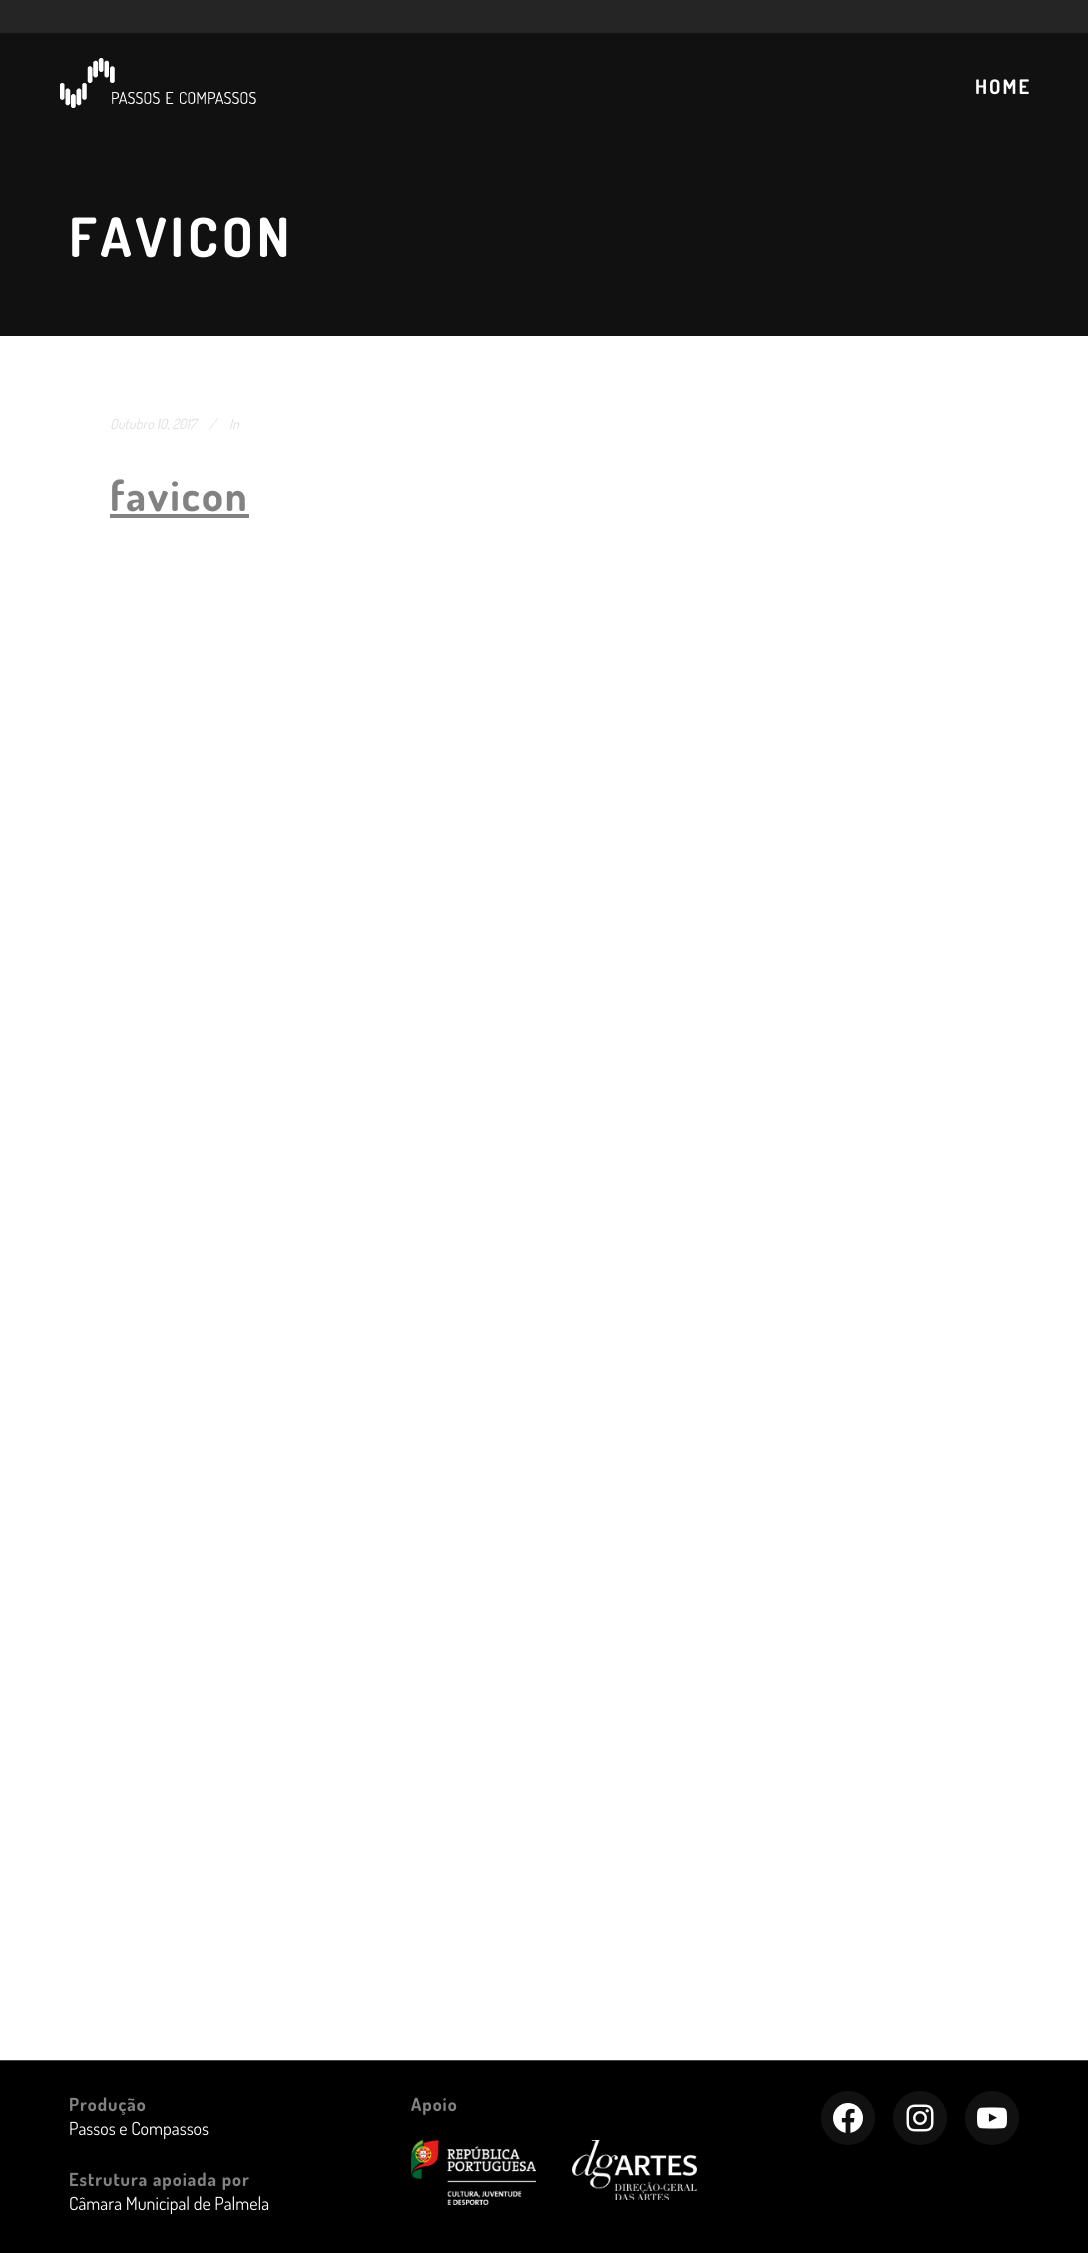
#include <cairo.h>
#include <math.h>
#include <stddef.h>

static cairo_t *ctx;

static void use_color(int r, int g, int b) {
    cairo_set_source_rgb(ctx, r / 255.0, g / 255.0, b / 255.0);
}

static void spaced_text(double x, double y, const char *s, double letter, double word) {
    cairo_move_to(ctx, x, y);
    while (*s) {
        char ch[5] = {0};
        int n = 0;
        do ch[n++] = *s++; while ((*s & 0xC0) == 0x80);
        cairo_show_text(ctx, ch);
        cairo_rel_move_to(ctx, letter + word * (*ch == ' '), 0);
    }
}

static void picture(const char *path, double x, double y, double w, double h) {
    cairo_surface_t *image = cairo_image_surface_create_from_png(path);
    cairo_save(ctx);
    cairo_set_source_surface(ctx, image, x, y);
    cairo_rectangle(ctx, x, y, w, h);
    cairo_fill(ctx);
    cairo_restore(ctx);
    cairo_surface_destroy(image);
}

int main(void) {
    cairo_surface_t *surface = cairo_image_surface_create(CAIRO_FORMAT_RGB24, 1088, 2253);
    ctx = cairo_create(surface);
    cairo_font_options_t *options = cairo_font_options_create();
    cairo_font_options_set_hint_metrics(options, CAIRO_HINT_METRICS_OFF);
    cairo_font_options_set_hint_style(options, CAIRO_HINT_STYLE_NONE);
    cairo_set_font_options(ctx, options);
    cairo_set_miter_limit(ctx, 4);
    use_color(0, 0, 0);
    cairo_paint(ctx);
    use_color(37, 37, 37);
    cairo_rectangle(ctx, 0, 0, 1088, 33);
    cairo_fill(ctx);
    use_color(17, 17, 17);
    cairo_rectangle(ctx, 0, 33, 1088, 303);
    cairo_fill(ctx);
    picture("img1.png", 60, 58, 196, 50);
    cairo_select_font_face(ctx, "Dosis", CAIRO_FONT_SLANT_NORMAL, CAIRO_FONT_WEIGHT_BOLD);
    cairo_set_font_size(ctx, 20);
    use_color(255, 255, 255);
    spaced_text(975, 94, "HOME", 2, 0);
    cairo_rectangle(ctx, 0, 336, 1088, 1724);
    cairo_fill(ctx);
    cairo_set_font_size(ctx, 54);
    spaced_text(69, 257, "FAVICON", 4, 0);
    cairo_select_font_face(ctx, "Dosis", CAIRO_FONT_SLANT_ITALIC, CAIRO_FONT_WEIGHT_NORMAL);
    cairo_set_font_size(ctx, 14);
    use_color(221, 221, 221);
    cairo_move_to(ctx, 110, 429);
    cairo_show_text(ctx, "Outubro 10, 2017");
    cairo_move_to(ctx, 209, 429);
    cairo_show_text(ctx, "/");
    cairo_move_to(ctx, 229, 429);
    cairo_show_text(ctx, "In");
    cairo_select_font_face(ctx, "Dosis", CAIRO_FONT_SLANT_NORMAL, CAIRO_FONT_WEIGHT_BOLD);
    cairo_set_font_size(ctx, 42);
    use_color(130, 130, 130);
    spaced_text(110, 511, "favicon", 2, 0);
    cairo_rectangle(ctx, 110, 514, 139, 4);
    cairo_fill(ctx);
    use_color(68, 68, 68);
    cairo_rectangle(ctx, 0, 2060, 1088, 1);
    cairo_fill(ctx);
    cairo_set_font_size(ctx, 18);
    use_color(130, 130, 130);
    spaced_text(69, 2111, "Produção", 1, 0);
    cairo_select_font_face(ctx, "Dosis", CAIRO_FONT_SLANT_NORMAL, CAIRO_FONT_WEIGHT_NORMAL);
    use_color(255, 255, 255);
    cairo_move_to(ctx, 69, 2135);
    cairo_show_text(ctx, "Passos e Compassos");
    cairo_select_font_face(ctx, "Dosis", CAIRO_FONT_SLANT_NORMAL, CAIRO_FONT_WEIGHT_BOLD);
    use_color(130, 130, 130);
    spaced_text(69, 2186, "Estrutura apoiada por", 1, 0);
    cairo_select_font_face(ctx, "Dosis", CAIRO_FONT_SLANT_NORMAL, CAIRO_FONT_WEIGHT_NORMAL);
    use_color(255, 255, 255);
    cairo_move_to(ctx, 69, 2210);
    cairo_show_text(ctx, "Câmara Municipal de Palmela");
    cairo_select_font_face(ctx, "Dosis", CAIRO_FONT_SLANT_NORMAL, CAIRO_FONT_WEIGHT_BOLD);
    use_color(130, 130, 130);
    spaced_text(411, 2111, "Apoio", 1, 0);
    picture("img2.png", 411, 2140, 125, 65);
    picture("img3.png", 572, 2140, 125, 60);
    use_color(17, 17, 17);
    cairo_arc(ctx, 848, 2118, 27, 0, 2 * M_PI);
    cairo_fill(ctx);
    picture("img4.png", 833, 2103, 30, 30);
    cairo_arc(ctx, 920, 2118, 27, 0, 2 * M_PI);
    cairo_fill(ctx);
    picture("img5.png", 906, 2104, 28, 28);
    cairo_arc(ctx, 992, 2118, 27, 0, 2 * M_PI);
    cairo_fill(ctx);
    picture("img6.png", 977, 2107, 30, 22);
    cairo_surface_write_to_png(surface, "result.png");
    cairo_font_options_destroy(options);
    cairo_destroy(ctx);
    cairo_surface_destroy(surface);
    return 0;
}
